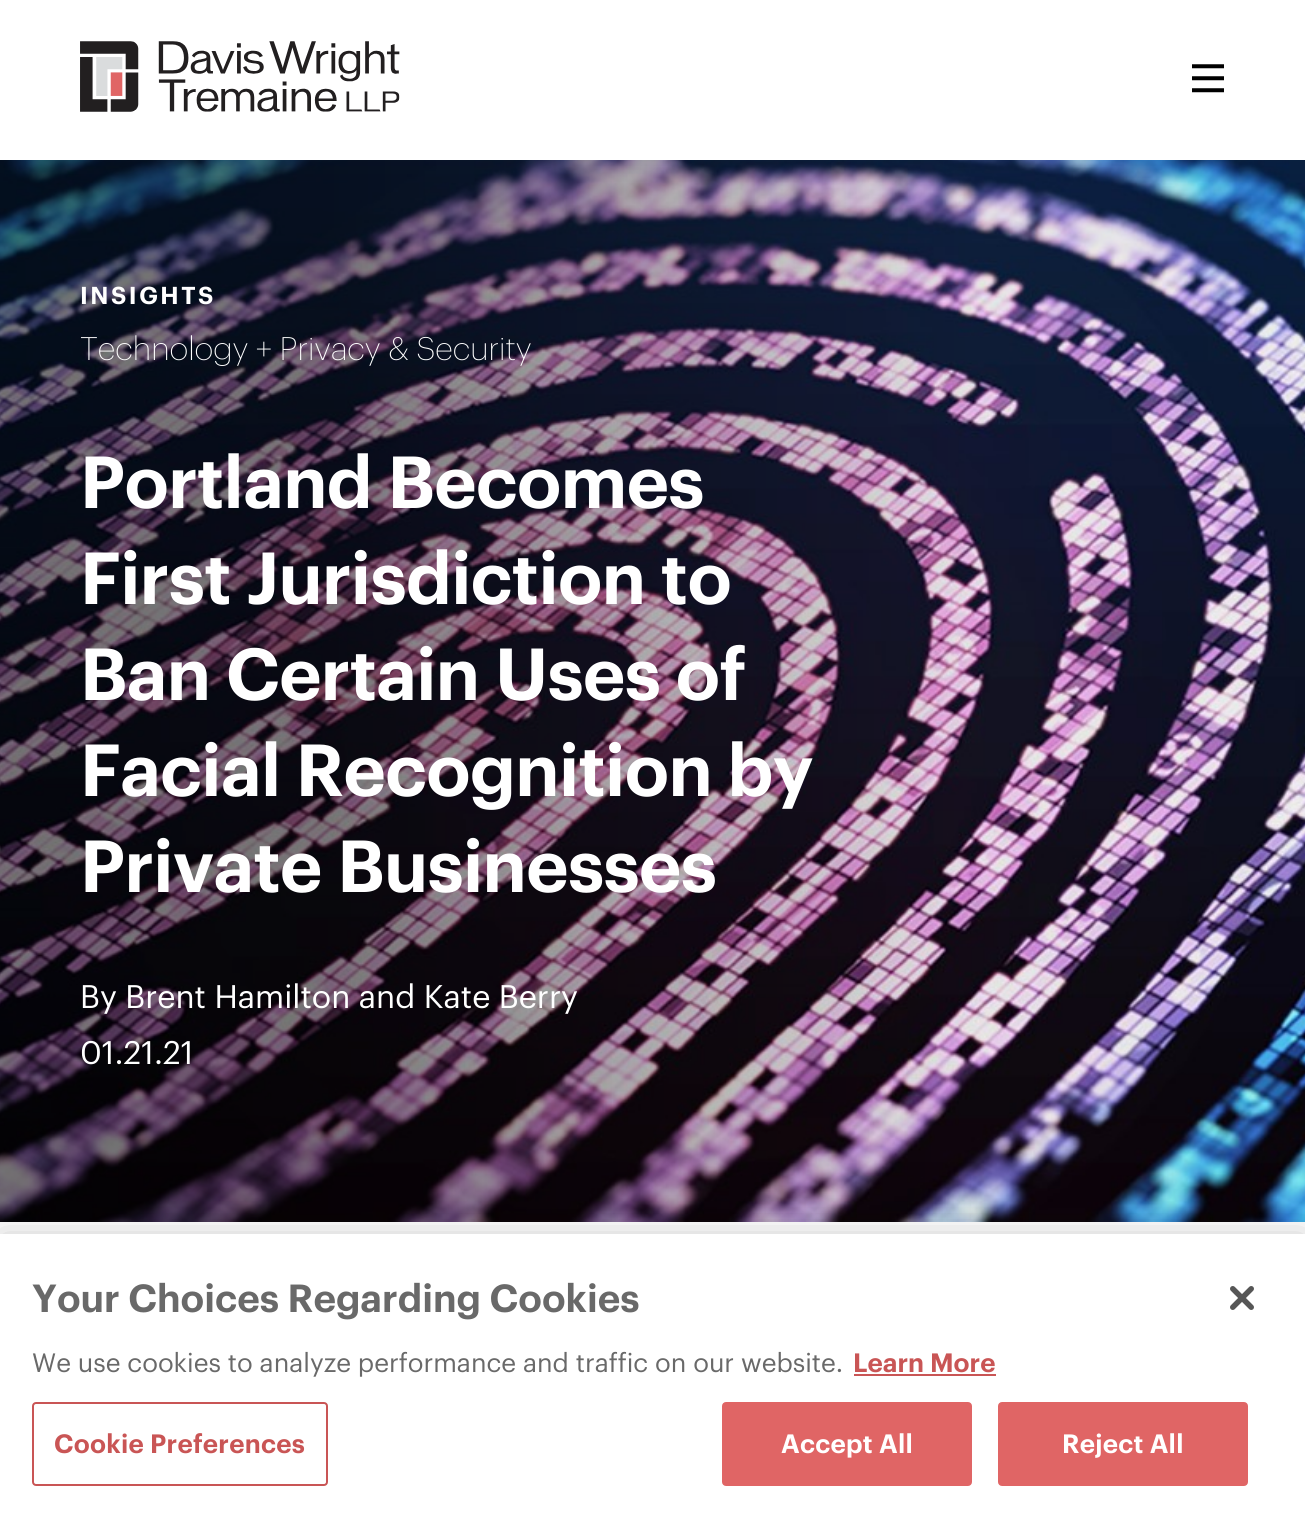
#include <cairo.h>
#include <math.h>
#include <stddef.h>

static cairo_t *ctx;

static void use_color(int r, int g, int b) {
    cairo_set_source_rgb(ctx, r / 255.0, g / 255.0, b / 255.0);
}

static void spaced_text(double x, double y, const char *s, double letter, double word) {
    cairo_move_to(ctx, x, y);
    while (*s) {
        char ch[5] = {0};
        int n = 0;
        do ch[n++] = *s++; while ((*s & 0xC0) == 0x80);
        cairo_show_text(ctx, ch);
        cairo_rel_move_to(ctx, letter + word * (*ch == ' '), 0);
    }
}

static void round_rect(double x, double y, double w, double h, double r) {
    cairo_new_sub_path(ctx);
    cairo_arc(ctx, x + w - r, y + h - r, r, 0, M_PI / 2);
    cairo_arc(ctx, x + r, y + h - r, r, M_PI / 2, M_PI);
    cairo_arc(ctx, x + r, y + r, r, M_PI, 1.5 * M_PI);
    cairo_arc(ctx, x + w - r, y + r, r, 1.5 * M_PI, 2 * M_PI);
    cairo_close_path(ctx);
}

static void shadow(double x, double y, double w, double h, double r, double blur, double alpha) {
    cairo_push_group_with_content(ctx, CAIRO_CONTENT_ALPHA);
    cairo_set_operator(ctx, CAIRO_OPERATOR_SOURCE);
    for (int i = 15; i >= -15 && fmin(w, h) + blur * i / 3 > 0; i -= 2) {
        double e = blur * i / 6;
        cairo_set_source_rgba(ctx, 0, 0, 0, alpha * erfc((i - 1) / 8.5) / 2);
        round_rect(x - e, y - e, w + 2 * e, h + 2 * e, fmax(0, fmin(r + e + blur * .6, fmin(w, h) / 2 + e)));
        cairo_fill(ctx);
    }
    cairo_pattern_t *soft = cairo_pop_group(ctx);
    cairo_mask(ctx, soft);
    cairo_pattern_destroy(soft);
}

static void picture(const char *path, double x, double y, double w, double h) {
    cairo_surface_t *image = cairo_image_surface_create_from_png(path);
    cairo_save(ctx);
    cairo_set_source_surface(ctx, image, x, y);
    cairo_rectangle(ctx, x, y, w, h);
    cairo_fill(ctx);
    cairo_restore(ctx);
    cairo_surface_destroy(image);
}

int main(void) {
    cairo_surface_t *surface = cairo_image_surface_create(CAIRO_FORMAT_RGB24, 1305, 1525);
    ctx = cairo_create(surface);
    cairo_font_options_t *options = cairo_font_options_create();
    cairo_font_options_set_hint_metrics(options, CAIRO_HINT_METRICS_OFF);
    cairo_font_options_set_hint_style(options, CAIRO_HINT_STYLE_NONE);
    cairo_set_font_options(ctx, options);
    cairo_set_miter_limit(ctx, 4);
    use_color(255, 255, 255);
    cairo_paint(ctx);
    picture("img3.png", 0, 160, 1305, 1062);
    use_color(30, 40, 60);
    shadow(0, 0, 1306, 160, 0, 12, 0.1);
    use_color(255, 255, 255);
    cairo_rectangle(ctx, 0, 0, 1305, 160);
    cairo_fill(ctx);
    picture("img1.png", 80, 41, 320, 71);
    picture("img2.png", 1192, 64, 32, 29);
    cairo_select_font_face(ctx, "Graphik SemiBold", CAIRO_FONT_SLANT_NORMAL, CAIRO_FONT_WEIGHT_NORMAL);
    cairo_set_font_size(ctx, 24);
    spaced_text(80, 304, "INSIGHTS", 2.5, 0);
    cairo_select_font_face(ctx, "Graphik ExtraLight", CAIRO_FONT_SLANT_NORMAL, CAIRO_FONT_WEIGHT_NORMAL);
    cairo_set_font_size(ctx, 32);
    cairo_move_to(ctx, 80, 360);
    cairo_show_text(ctx, "Technology + Privacy & Security");
    cairo_select_font_face(ctx, "Graphik SemiBold", CAIRO_FONT_SLANT_NORMAL, CAIRO_FONT_WEIGHT_NORMAL);
    cairo_set_font_size(ctx, 72);
    spaced_text(80, 508, "Portland Becomes", -0.6, 0);
    spaced_text(80, 604, "First Jurisdiction to", -0.6, 0);
    spaced_text(80, 700, "Ban Certain Uses of", -0.6, 0);
    spaced_text(80, 796, "Facial Recognition by", -0.6, 0);
    spaced_text(80, 892, "Private Businesses", -0.6, 0);
    cairo_select_font_face(ctx, "Graphik", CAIRO_FONT_SLANT_NORMAL, CAIRO_FONT_WEIGHT_NORMAL);
    cairo_set_font_size(ctx, 32);
    cairo_move_to(ctx, 80, 1008);
    cairo_show_text(ctx, "By Brent Hamilton and Kate Berry");
    cairo_move_to(ctx, 80, 1064);
    cairo_show_text(ctx, "01.21.21");
    use_color(0, 0, 0);
    shadow(0, 1234, 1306, 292, 0, 18, 0.2);
    use_color(255, 255, 255);
    cairo_rectangle(ctx, 0, 1234, 1305, 291);
    cairo_fill(ctx);
    cairo_select_font_face(ctx, "Graphik SemiBold", CAIRO_FONT_SLANT_NORMAL, CAIRO_FONT_WEIGHT_NORMAL);
    cairo_set_font_size(ctx, 38.4);
    use_color(105, 105, 105);
    cairo_move_to(ctx, 32, 1312);
    cairo_show_text(ctx, "Your Choices Regarding Cookies");
    cairo_select_font_face(ctx, "Graphik", CAIRO_FONT_SLANT_NORMAL, CAIRO_FONT_WEIGHT_NORMAL);
    cairo_set_font_size(ctx, 26);
    cairo_move_to(ctx, 32, 1372);
    cairo_show_text(ctx, "We use cookies to analyze performance and traffic on our website.");
    cairo_select_font_face(ctx, "Graphik SemiBold", CAIRO_FONT_SLANT_NORMAL, CAIRO_FONT_WEIGHT_NORMAL);
    use_color(201, 85, 85);
    cairo_move_to(ctx, 853, 1372);
    cairo_show_text(ctx, "Learn More");
    cairo_rectangle(ctx, 854, 1374, 142, 2);
    cairo_fill(ctx);
    round_rect(33, 1403, 294, 82, 3);
    cairo_stroke(ctx);
    spaced_text(54, 1453, "Cookie Preferences", 0.25, 0);
    use_color(224, 101, 101);
    round_rect(723, 1403, 248, 82, 3);
    cairo_fill_preserve(ctx);
    cairo_stroke(ctx);
    use_color(255, 255, 255);
    spaced_text(781, 1453, "Accept All", 0.25, 0);
    use_color(224, 101, 101);
    round_rect(999, 1403, 248, 82, 3);
    cairo_fill_preserve(ctx);
    cairo_stroke(ctx);
    use_color(255, 255, 255);
    spaced_text(1062, 1453, "Reject All", 0.25, 0);
    picture("img4.png", 1230, 1286, 24, 24);
    cairo_surface_write_to_png(surface, "result.png");
    cairo_font_options_destroy(options);
    cairo_destroy(ctx);
    cairo_surface_destroy(surface);
    return 0;
}
